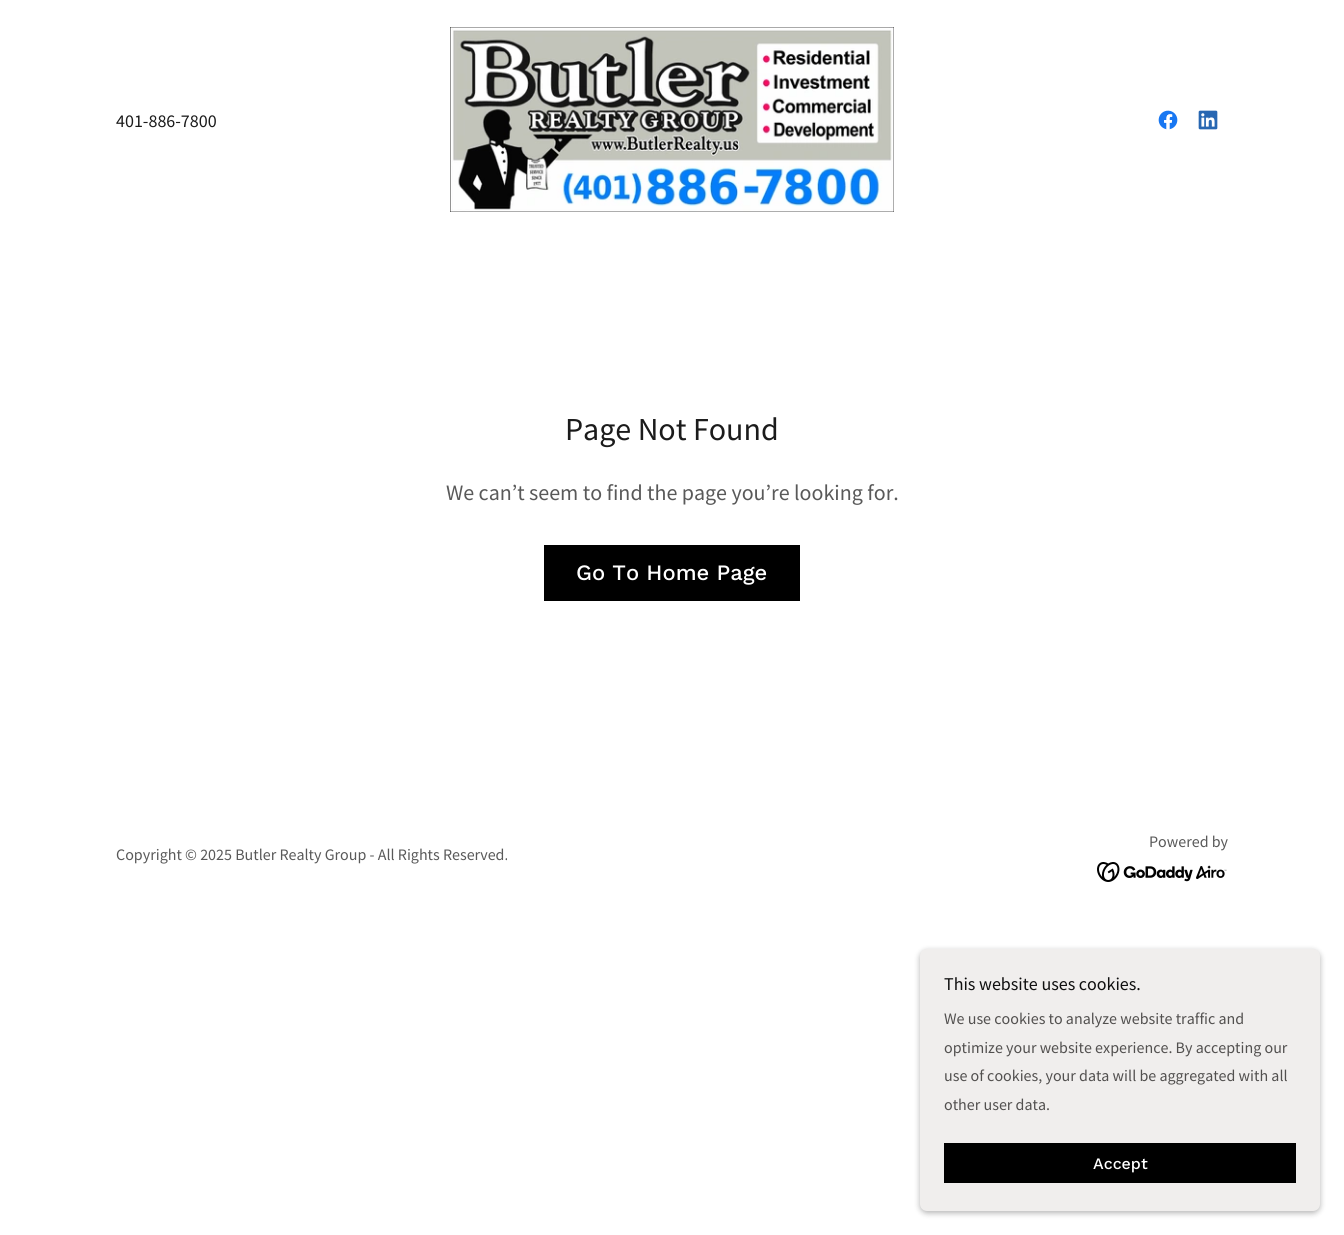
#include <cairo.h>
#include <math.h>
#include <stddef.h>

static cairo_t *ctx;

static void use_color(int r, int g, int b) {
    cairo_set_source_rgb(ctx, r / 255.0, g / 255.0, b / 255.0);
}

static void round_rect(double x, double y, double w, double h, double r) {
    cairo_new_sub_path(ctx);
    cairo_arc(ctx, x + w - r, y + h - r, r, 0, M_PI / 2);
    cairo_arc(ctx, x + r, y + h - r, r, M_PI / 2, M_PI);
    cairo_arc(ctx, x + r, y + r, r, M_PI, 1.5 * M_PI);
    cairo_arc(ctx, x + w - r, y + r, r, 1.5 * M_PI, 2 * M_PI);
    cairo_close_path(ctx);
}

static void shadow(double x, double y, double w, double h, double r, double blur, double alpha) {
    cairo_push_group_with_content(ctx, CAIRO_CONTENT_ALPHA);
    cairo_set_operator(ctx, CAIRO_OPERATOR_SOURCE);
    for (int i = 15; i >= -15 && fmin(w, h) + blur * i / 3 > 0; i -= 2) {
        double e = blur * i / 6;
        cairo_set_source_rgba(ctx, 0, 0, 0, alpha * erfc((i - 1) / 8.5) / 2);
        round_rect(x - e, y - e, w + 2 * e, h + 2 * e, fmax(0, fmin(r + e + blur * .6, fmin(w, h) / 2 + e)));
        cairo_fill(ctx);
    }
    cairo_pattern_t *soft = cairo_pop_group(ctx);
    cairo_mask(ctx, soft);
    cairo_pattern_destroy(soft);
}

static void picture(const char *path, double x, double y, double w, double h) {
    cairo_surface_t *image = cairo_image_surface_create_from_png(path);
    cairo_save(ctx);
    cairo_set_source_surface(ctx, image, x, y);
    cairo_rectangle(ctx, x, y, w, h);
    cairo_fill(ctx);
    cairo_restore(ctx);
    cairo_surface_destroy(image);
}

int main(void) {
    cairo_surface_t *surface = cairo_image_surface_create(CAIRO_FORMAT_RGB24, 1344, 1235);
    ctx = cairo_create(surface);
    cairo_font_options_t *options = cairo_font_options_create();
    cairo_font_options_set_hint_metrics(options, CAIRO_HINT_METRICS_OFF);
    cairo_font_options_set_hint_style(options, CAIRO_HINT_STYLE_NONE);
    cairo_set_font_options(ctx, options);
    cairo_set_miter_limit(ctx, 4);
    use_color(255, 255, 255);
    cairo_paint(ctx);
    cairo_select_font_face(ctx, "Source Sans Pro", CAIRO_FONT_SLANT_NORMAL, CAIRO_FONT_WEIGHT_NORMAL);
    cairo_set_font_size(ctx, 18);
    use_color(27, 27, 27);
    cairo_move_to(ctx, 116, 127);
    cairo_show_text(ctx, "401-886-7800");
    picture("img1.png", 450, 27, 444, 185);
    picture("img2.png", 1158, 110, 20, 20);
    picture("img3.png", 1198, 110, 20, 20);
    cairo_set_font_size(ctx, 32);
    cairo_move_to(ctx, 565, 440);
    cairo_show_text(ctx, "Page Not Found");
    cairo_set_font_size(ctx, 22);
    use_color(89, 89, 89);
    cairo_move_to(ctx, 446, 500);
    cairo_show_text(ctx, "We can’t seem to find the page you’re looking for.");
    use_color(0, 0, 0);
    cairo_rectangle(ctx, 544, 545, 256, 56);
    cairo_fill(ctx);
    cairo_select_font_face(ctx, "Work Sans Medium", CAIRO_FONT_SLANT_NORMAL, CAIRO_FONT_WEIGHT_NORMAL);
    use_color(255, 255, 255);
    cairo_move_to(ctx, 576, 580);
    cairo_show_text(ctx, "Go To Home Page");
    cairo_select_font_face(ctx, "Source Sans Pro", CAIRO_FONT_SLANT_NORMAL, CAIRO_FONT_WEIGHT_NORMAL);
    cairo_set_font_size(ctx, 16);
    use_color(89, 89, 89);
    cairo_move_to(ctx, 1149, 847);
    cairo_show_text(ctx, "Powered by");
    picture("img4.png", 1097, 862, 130, 20);
    cairo_move_to(ctx, 116, 860);
    cairo_show_text(ctx, "Copyright © 2025 Butler Realty Group - All Rights Reserved.");
    use_color(0, 0, 0);
    shadow(920, 951, 400, 262, 7, 3, 0.3);
    use_color(240, 238, 237);
    round_rect(920, 949, 400, 262, 7);
    cairo_fill(ctx);
    cairo_set_font_size(ctx, 18);
    use_color(15, 15, 15);
    cairo_move_to(ctx, 944, 990);
    cairo_show_text(ctx, "This website uses cookies.");
    cairo_set_font_size(ctx, 16);
    use_color(82, 80, 79);
    cairo_move_to(ctx, 944, 1024);
    cairo_show_text(ctx, "We use cookies to analyze website traffic and");
    cairo_move_to(ctx, 944, 1053);
    cairo_show_text(ctx, "optimize your website experience. By accepting our");
    cairo_move_to(ctx, 944, 1081);
    cairo_show_text(ctx, "use of cookies, your data will be aggregated with all");
    cairo_move_to(ctx, 944, 1110);
    cairo_show_text(ctx, "other user data.");
    use_color(0, 0, 0);
    cairo_rectangle(ctx, 944, 1143, 352, 40);
    cairo_fill(ctx);
    cairo_select_font_face(ctx, "Work Sans Medium", CAIRO_FONT_SLANT_NORMAL, CAIRO_FONT_WEIGHT_NORMAL);
    use_color(255, 255, 255);
    cairo_move_to(ctx, 1093, 1169);
    cairo_show_text(ctx, "Accept");
    cairo_surface_write_to_png(surface, "result.png");
    cairo_font_options_destroy(options);
    cairo_destroy(ctx);
    cairo_surface_destroy(surface);
    return 0;
}
